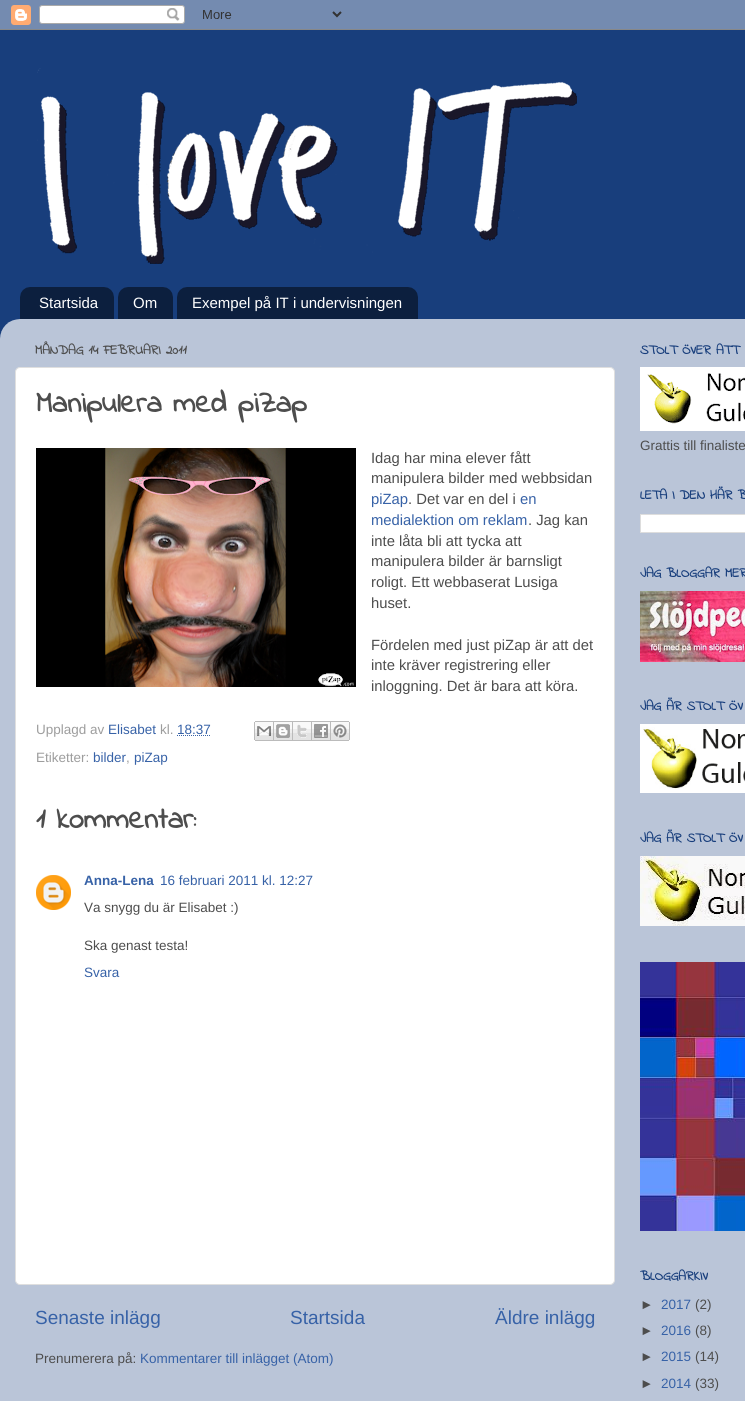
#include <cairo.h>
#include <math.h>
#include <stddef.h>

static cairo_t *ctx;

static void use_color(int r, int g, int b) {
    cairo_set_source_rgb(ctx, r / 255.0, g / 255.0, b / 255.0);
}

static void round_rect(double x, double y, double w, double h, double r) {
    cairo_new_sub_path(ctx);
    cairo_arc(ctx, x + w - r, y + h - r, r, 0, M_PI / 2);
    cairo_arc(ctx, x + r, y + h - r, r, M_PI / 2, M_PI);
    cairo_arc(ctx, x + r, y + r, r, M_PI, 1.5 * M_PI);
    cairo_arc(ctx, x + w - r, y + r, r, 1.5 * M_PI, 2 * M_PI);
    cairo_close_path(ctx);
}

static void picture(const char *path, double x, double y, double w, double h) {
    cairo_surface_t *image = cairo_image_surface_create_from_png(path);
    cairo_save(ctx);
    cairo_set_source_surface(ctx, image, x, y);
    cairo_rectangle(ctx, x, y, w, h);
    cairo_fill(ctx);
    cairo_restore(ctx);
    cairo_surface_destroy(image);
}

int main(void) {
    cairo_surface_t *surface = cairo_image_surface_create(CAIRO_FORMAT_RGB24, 745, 1401);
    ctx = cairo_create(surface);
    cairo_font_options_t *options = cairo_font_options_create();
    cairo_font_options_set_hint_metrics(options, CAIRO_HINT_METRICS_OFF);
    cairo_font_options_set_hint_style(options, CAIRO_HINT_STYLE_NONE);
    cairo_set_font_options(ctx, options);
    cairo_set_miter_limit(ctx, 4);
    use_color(24, 62, 124);
    cairo_paint(ctx);
    picture("img1.png", 0, 0, 745, 30);
    picture("img2.png", 37, 68, 540, 196);
    picture("img3.png", 20, 287, 94, 32);
    cairo_select_font_face(ctx, "Liberation Sans", CAIRO_FONT_SLANT_NORMAL, CAIRO_FONT_WEIGHT_NORMAL);
    cairo_set_font_size(ctx, 15);
    use_color(255, 255, 255);
    cairo_move_to(ctx, 39, 308);
    cairo_show_text(ctx, "Startsida");
    picture("img4.png", 118, 287, 55, 32);
    cairo_move_to(ctx, 133, 308);
    cairo_show_text(ctx, "Om");
    picture("img5.png", 177, 287, 241, 32);
    cairo_move_to(ctx, 192, 308);
    cairo_show_text(ctx, "Exempel på IT i undervisningen");
    picture("img6.png", 0, 319, 745, 1082);
    cairo_select_font_face(ctx, "Indie Flower", CAIRO_FONT_SLANT_NORMAL, CAIRO_FONT_WEIGHT_BOLD);
    cairo_set_font_size(ctx, 13.5);
    use_color(77, 77, 77);
    cairo_move_to(ctx, 35, 354);
    cairo_show_text(ctx, "MÅNDAG 14 FEBRUARI 2011");
    use_color(255, 255, 255);
    round_rect(15.5, 367.5, 599, 917, 4.5);
    cairo_fill_preserve(ctx);
    use_color(223, 223, 223);
    cairo_set_line_width(ctx, 1);
    cairo_stroke(ctx);
    cairo_set_font_size(ctx, 30);
    use_color(77, 77, 77);
    cairo_move_to(ctx, 36, 412);
    cairo_show_text(ctx, "Manipulera med piZap");
    picture("img7.png", 36, 448, 320, 239);
    cairo_select_font_face(ctx, "Liberation Sans", CAIRO_FONT_SLANT_NORMAL, CAIRO_FONT_WEIGHT_NORMAL);
    cairo_set_font_size(ctx, 14.8);
    cairo_move_to(ctx, 371, 463);
    cairo_show_text(ctx, "Idag har mina elever fått");
    cairo_move_to(ctx, 371, 483);
    cairo_show_text(ctx, "manipulera bilder med webbsidan");
    use_color(55, 98, 167);
    cairo_move_to(ctx, 371, 504);
    cairo_show_text(ctx, "piZap");
    use_color(77, 77, 77);
    cairo_move_to(ctx, 408, 504);
    cairo_show_text(ctx, ". Det var en del i");
    use_color(55, 98, 167);
    cairo_move_to(ctx, 520, 504);
    cairo_show_text(ctx, "en");
    cairo_move_to(ctx, 371, 525);
    cairo_show_text(ctx, "medialektion om reklam");
    use_color(77, 77, 77);
    cairo_move_to(ctx, 528, 525);
    cairo_show_text(ctx, ". Jag kan");
    cairo_move_to(ctx, 371, 546);
    cairo_show_text(ctx, "inte låta bli att tycka att");
    cairo_move_to(ctx, 371, 566);
    cairo_show_text(ctx, "manipulera bilder är barnsligt");
    cairo_move_to(ctx, 371, 587);
    cairo_show_text(ctx, "roligt. Ett webbaserat Lusiga");
    cairo_move_to(ctx, 371, 608);
    cairo_show_text(ctx, "huset.");
    cairo_move_to(ctx, 371, 650);
    cairo_show_text(ctx, "Fördelen med just piZap är att det");
    cairo_move_to(ctx, 371, 670);
    cairo_show_text(ctx, "inte kräver registrering eller");
    cairo_move_to(ctx, 371, 691);
    cairo_show_text(ctx, "inloggning. Det är bara att köra.");
    cairo_set_font_size(ctx, 13.5);
    use_color(157, 157, 157);
    cairo_move_to(ctx, 36, 734);
    cairo_show_text(ctx, "Upplagd av");
    use_color(55, 98, 167);
    cairo_move_to(ctx, 108, 734);
    cairo_show_text(ctx, "Elisabet");
    use_color(157, 157, 157);
    cairo_move_to(ctx, 160, 734);
    cairo_show_text(ctx, "kl.");
    use_color(55, 98, 167);
    cairo_move_to(ctx, 177, 734);
    cairo_show_text(ctx, "18:37");
    cairo_new_path(ctx);
    cairo_move_to(ctx, 177, 735.5);
    cairo_line_to(ctx, 211, 735.5);
    cairo_set_dash(ctx, (double[]){1, 1}, 2, 0);
    cairo_stroke(ctx);
    picture("img8.png", 254, 721, 20, 20);
    picture("img9.png", 274, 721, 19, 20);
    picture("img10.png", 293, 721, 19, 20);
    picture("img11.png", 312, 721, 19, 20);
    picture("img12.png", 331, 721, 19, 20);
    use_color(157, 157, 157);
    cairo_move_to(ctx, 36, 762);
    cairo_show_text(ctx, "Etiketter:");
    use_color(55, 98, 167);
    cairo_move_to(ctx, 93, 762);
    cairo_show_text(ctx, "bilder");
    use_color(157, 157, 157);
    cairo_move_to(ctx, 126, 762);
    cairo_show_text(ctx, ",");
    use_color(55, 98, 167);
    cairo_move_to(ctx, 134, 762);
    cairo_show_text(ctx, "piZap");
    cairo_select_font_face(ctx, "Indie Flower", CAIRO_FONT_SLANT_NORMAL, CAIRO_FONT_WEIGHT_BOLD);
    cairo_set_font_size(ctx, 30);
    use_color(77, 77, 77);
    cairo_move_to(ctx, 36, 828);
    cairo_show_text(ctx, "1 kommentar:");
    picture("img13.png", 36, 875, 35, 35);
    cairo_select_font_face(ctx, "Liberation Sans", CAIRO_FONT_SLANT_NORMAL, CAIRO_FONT_WEIGHT_BOLD);
    cairo_set_font_size(ctx, 13.5);
    use_color(55, 98, 167);
    cairo_move_to(ctx, 84, 885);
    cairo_show_text(ctx, "Anna-Lena");
    cairo_select_font_face(ctx, "Liberation Sans", CAIRO_FONT_SLANT_NORMAL, CAIRO_FONT_WEIGHT_NORMAL);
    cairo_move_to(ctx, 160, 885);
    cairo_show_text(ctx, "16 februari 2011 kl. 12:27");
    use_color(77, 77, 77);
    cairo_move_to(ctx, 84, 912);
    cairo_show_text(ctx, "Va snygg du är Elisabet :)");
    cairo_move_to(ctx, 84, 950);
    cairo_show_text(ctx, "Ska genast testa!");
    use_color(55, 98, 167);
    cairo_move_to(ctx, 84, 977);
    cairo_show_text(ctx, "Svara");
    cairo_set_font_size(ctx, 19);
    cairo_move_to(ctx, 35, 1324);
    cairo_show_text(ctx, "Senaste inlägg");
    cairo_move_to(ctx, 290, 1324);
    cairo_show_text(ctx, "Startsida");
    cairo_move_to(ctx, 495, 1324);
    cairo_show_text(ctx, "Äldre inlägg");
    cairo_set_font_size(ctx, 13.5);
    use_color(77, 77, 77);
    cairo_move_to(ctx, 35, 1363);
    cairo_show_text(ctx, "Prenumerera på:");
    use_color(55, 98, 167);
    cairo_move_to(ctx, 140, 1363);
    cairo_show_text(ctx, "Kommentarer till inlägget (Atom)");
    cairo_select_font_face(ctx, "Indie Flower", CAIRO_FONT_SLANT_NORMAL, CAIRO_FONT_WEIGHT_BOLD);
    use_color(24, 62, 124);
    cairo_move_to(ctx, 640, 354);
    cairo_show_text(ctx, "STOLT ÖVER ATT");
    picture("img14.png", 640, 367, 105, 64);
    cairo_select_font_face(ctx, "Liberation Sans", CAIRO_FONT_SLANT_NORMAL, CAIRO_FONT_WEIGHT_NORMAL);
    use_color(77, 77, 77);
    cairo_move_to(ctx, 640, 450);
    cairo_show_text(ctx, "Grattis till finaliste");
    cairo_select_font_face(ctx, "Indie Flower", CAIRO_FONT_SLANT_NORMAL, CAIRO_FONT_WEIGHT_BOLD);
    use_color(24, 62, 124);
    cairo_move_to(ctx, 640, 499);
    cairo_show_text(ctx, "LETA I DEN HÄR B");
    use_color(255, 255, 255);
    cairo_rectangle(ctx, 640.5, 514.5, 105, 18);
    cairo_fill_preserve(ctx);
    use_color(221, 221, 221);
    cairo_set_dash(ctx, NULL, 0, 0);
    cairo_stroke(ctx);
    use_color(24, 62, 124);
    cairo_move_to(ctx, 640, 577);
    cairo_show_text(ctx, "JAG BLOGGAR MER");
    picture("img15.png", 640, 591, 105, 71);
    cairo_move_to(ctx, 640, 710);
    cairo_show_text(ctx, "JAG ÄR STOLT ÖV");
    picture("img16.png", 640, 724, 105, 69);
    cairo_move_to(ctx, 640, 842);
    cairo_show_text(ctx, "JAG ÄR STOLT ÖV");
    picture("img17.png", 640, 856, 105, 70);
    picture("img18.png", 640, 962, 105, 269);
    cairo_move_to(ctx, 640, 1280);
    cairo_show_text(ctx, "BLOGGARKIV");
    cairo_select_font_face(ctx, "Liberation Sans", CAIRO_FONT_SLANT_NORMAL, CAIRO_FONT_WEIGHT_NORMAL);
    use_color(77, 77, 77);
    cairo_move_to(ctx, 640, 1309);
    cairo_show_text(ctx, "►");
    use_color(55, 98, 167);
    cairo_move_to(ctx, 661, 1309);
    cairo_show_text(ctx, "2017");
    use_color(77, 77, 77);
    cairo_move_to(ctx, 695, 1309);
    cairo_show_text(ctx, "(2)");
    cairo_move_to(ctx, 640, 1335);
    cairo_show_text(ctx, "►");
    use_color(55, 98, 167);
    cairo_move_to(ctx, 661, 1335);
    cairo_show_text(ctx, "2016");
    use_color(77, 77, 77);
    cairo_move_to(ctx, 695, 1335);
    cairo_show_text(ctx, "(8)");
    cairo_move_to(ctx, 640, 1361);
    cairo_show_text(ctx, "►");
    use_color(55, 98, 167);
    cairo_move_to(ctx, 661, 1361);
    cairo_show_text(ctx, "2015");
    use_color(77, 77, 77);
    cairo_move_to(ctx, 695, 1361);
    cairo_show_text(ctx, "(14)");
    cairo_move_to(ctx, 640, 1388);
    cairo_show_text(ctx, "►");
    use_color(55, 98, 167);
    cairo_move_to(ctx, 661, 1388);
    cairo_show_text(ctx, "2014");
    use_color(77, 77, 77);
    cairo_move_to(ctx, 695, 1388);
    cairo_show_text(ctx, "(33)");
    cairo_surface_write_to_png(surface, "result.png");
    cairo_font_options_destroy(options);
    cairo_destroy(ctx);
    cairo_surface_destroy(surface);
    return 0;
}
